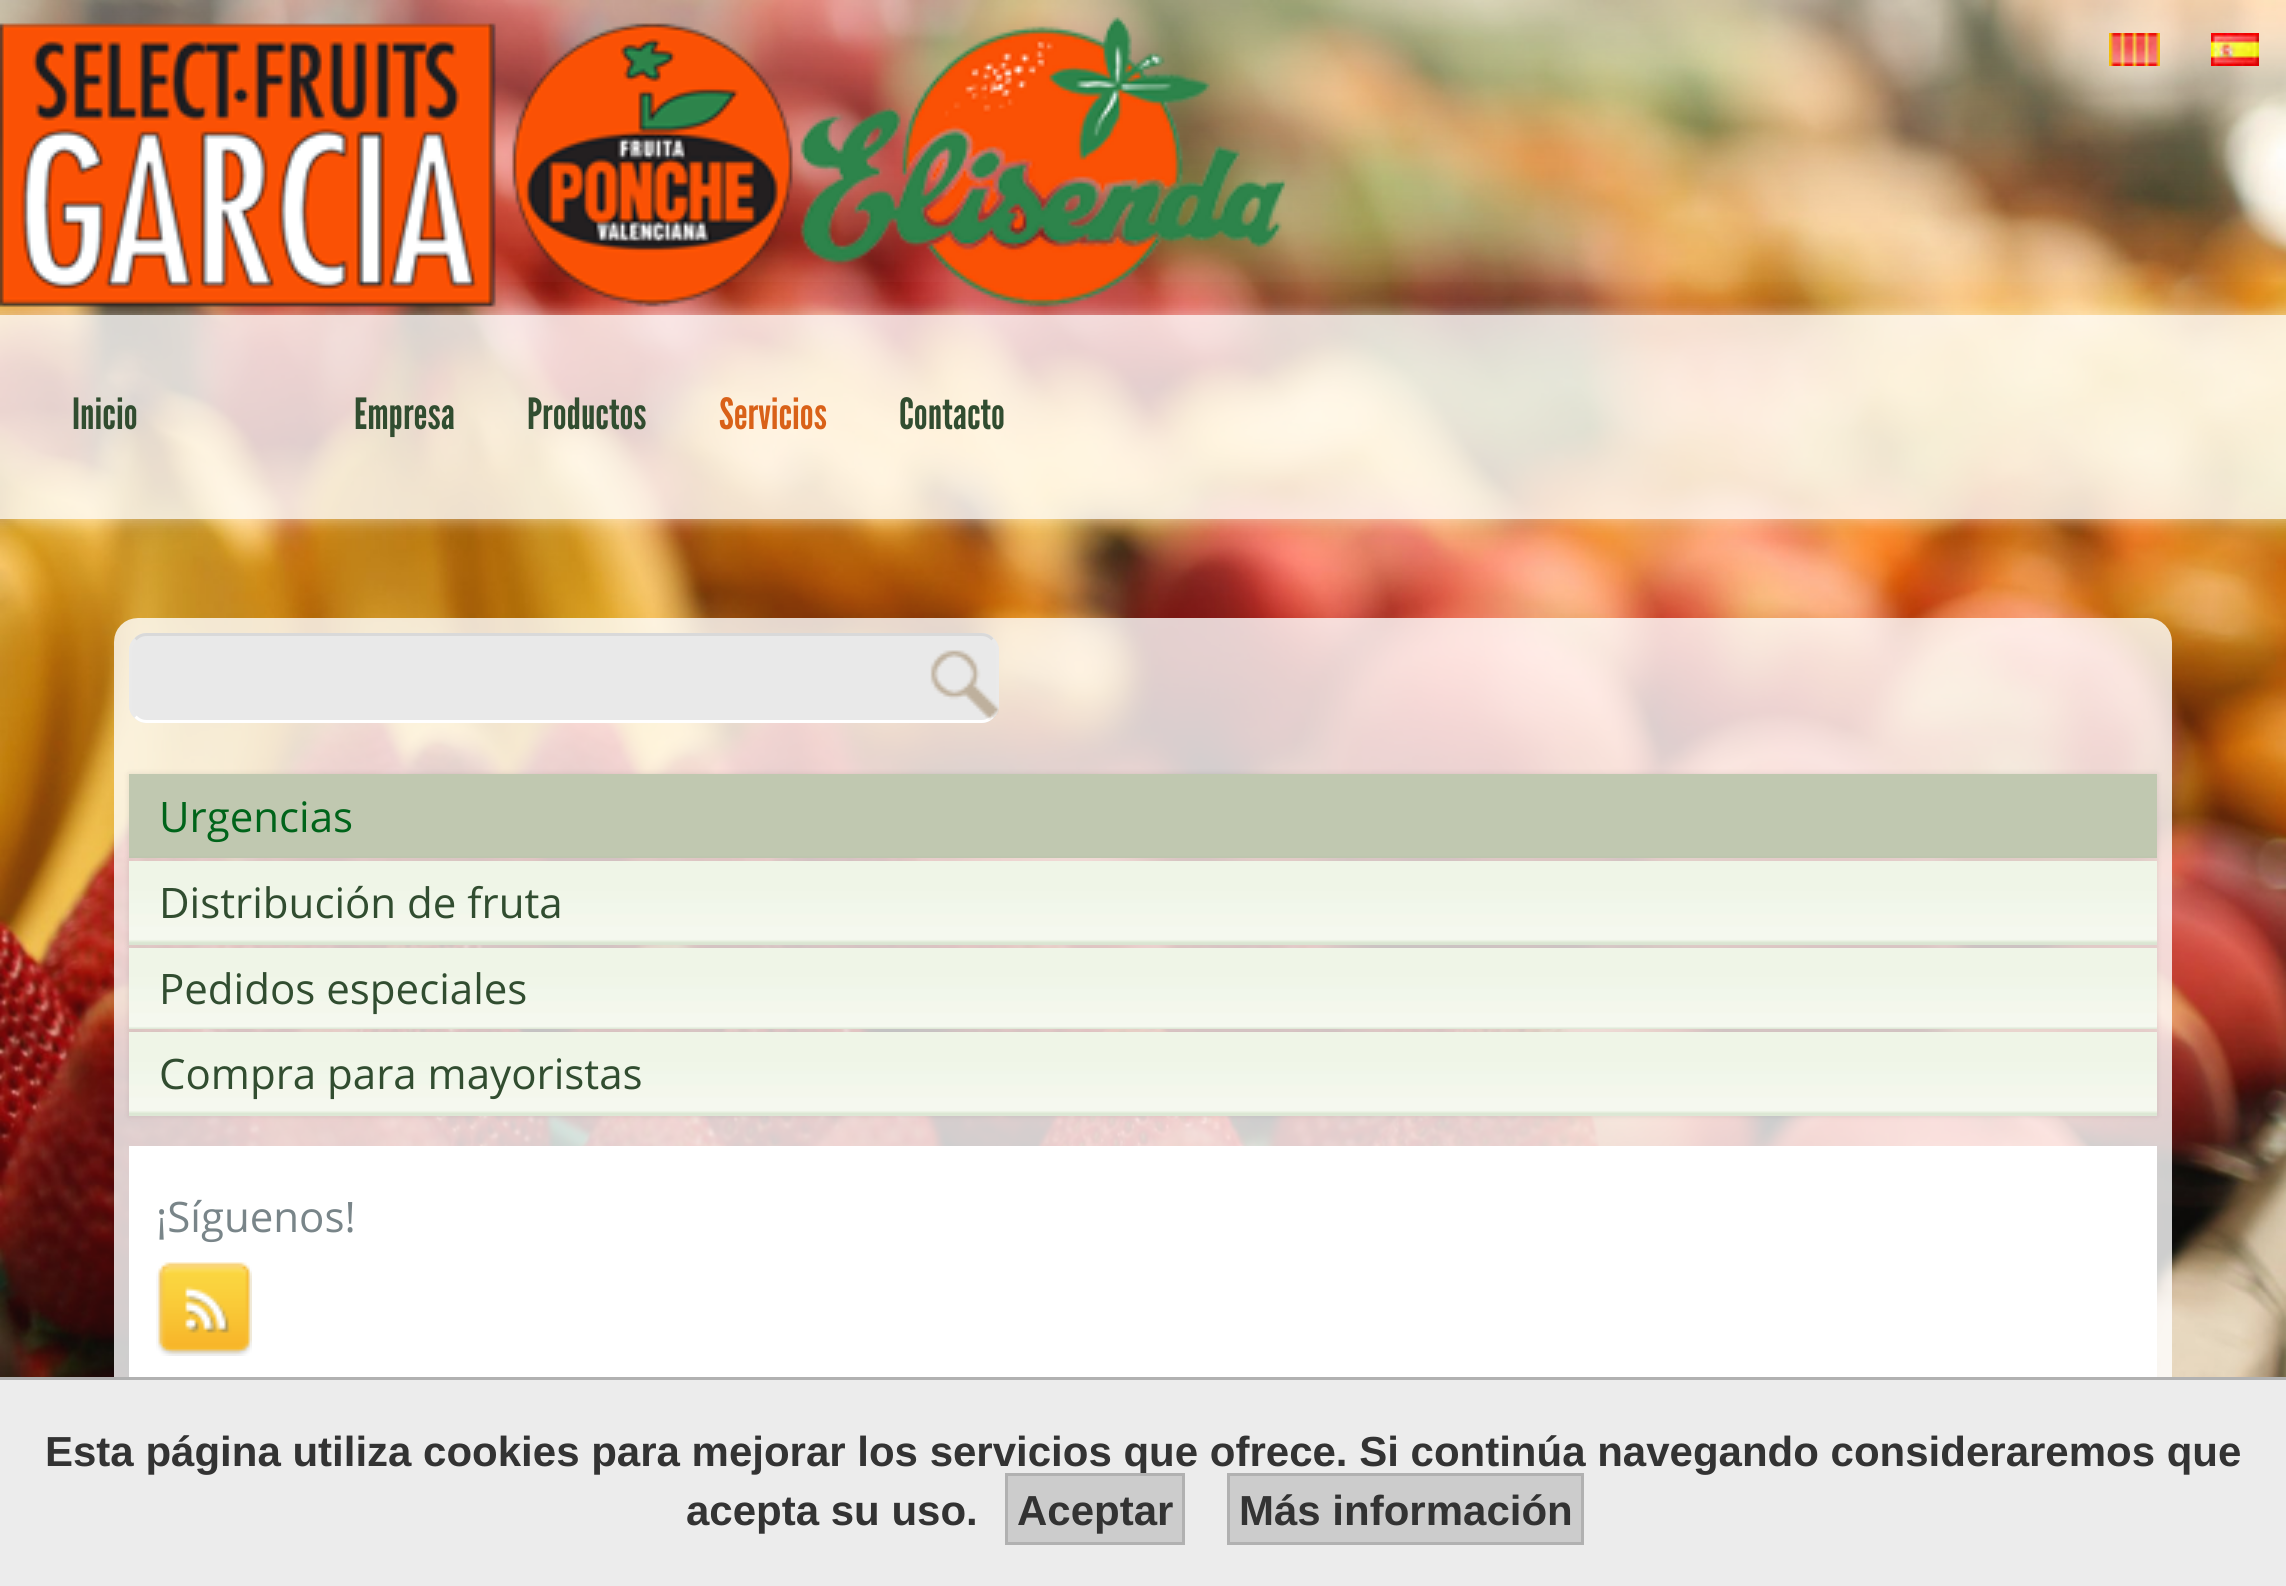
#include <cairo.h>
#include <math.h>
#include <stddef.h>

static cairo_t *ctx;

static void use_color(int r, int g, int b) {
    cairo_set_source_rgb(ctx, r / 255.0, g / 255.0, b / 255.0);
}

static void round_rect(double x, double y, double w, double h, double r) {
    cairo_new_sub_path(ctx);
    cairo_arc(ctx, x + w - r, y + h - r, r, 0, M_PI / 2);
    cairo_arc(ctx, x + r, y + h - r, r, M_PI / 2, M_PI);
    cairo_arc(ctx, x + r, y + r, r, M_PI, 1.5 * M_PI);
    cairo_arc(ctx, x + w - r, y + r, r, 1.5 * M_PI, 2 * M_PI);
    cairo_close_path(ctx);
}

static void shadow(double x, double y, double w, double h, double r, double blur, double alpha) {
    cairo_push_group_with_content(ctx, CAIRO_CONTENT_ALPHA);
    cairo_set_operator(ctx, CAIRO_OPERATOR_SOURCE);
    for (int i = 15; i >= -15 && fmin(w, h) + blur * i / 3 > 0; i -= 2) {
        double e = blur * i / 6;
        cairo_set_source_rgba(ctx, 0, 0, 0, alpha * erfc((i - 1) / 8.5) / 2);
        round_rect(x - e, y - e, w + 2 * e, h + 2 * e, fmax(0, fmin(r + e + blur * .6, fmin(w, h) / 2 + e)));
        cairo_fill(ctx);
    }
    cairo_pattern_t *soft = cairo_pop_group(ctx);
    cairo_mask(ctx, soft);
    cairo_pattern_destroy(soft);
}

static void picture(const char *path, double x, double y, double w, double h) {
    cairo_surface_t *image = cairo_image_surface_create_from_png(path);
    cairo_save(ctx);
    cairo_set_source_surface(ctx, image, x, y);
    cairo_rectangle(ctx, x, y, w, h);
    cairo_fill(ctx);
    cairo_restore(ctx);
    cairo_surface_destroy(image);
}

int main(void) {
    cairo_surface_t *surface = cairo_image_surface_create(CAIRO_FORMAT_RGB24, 2286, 1586);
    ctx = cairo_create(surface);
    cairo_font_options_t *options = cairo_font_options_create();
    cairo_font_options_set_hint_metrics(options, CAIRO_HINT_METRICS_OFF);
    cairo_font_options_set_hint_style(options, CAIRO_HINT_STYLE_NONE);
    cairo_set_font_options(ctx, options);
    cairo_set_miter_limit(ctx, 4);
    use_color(255, 255, 255);
    cairo_paint(ctx);
    picture("img1.png", 0, 0, 2286, 1377);
    picture("img2.png", 0, 0, 2286, 282);
    cairo_save(ctx);
    cairo_set_fill_rule(ctx, CAIRO_FILL_RULE_EVEN_ODD);
    cairo_new_path(ctx);
    cairo_move_to(ctx, 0, 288);
    cairo_line_to(ctx, 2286, 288);
    cairo_line_to(ctx, 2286, 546);
    cairo_line_to(ctx, 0, 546);
    cairo_close_path(ctx);
    cairo_move_to(ctx, 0, 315);
    cairo_line_to(ctx, 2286, 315);
    cairo_line_to(ctx, 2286, 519);
    cairo_line_to(ctx, 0, 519);
    cairo_close_path(ctx);
    cairo_clip(ctx);
    shadow(-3, 312, 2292, 210, 0, 7.5, 0.4);
    cairo_restore(ctx);
    picture("img3.png", 0, 15, 1287, 292);
    picture("img4.png", 2109, 33, 51, 33);
    picture("img5.png", 2211, 33, 48, 33);
    cairo_set_source_rgba(ctx, 1, 1, 1, 0.8);
    cairo_rectangle(ctx, 0, 315, 2286, 204);
    cairo_fill(ctx);
    cairo_select_font_face(ctx, "League Gothic", CAIRO_FONT_SLANT_NORMAL, CAIRO_FONT_WEIGHT_NORMAL);
    cairo_set_font_size(ctx, 43);
    use_color(49, 77, 48);
    cairo_move_to(ctx, 72, 429);
    cairo_show_text(ctx, "Inicio");
    cairo_move_to(ctx, 354, 429);
    cairo_show_text(ctx, "Empresa");
    cairo_move_to(ctx, 527, 429);
    cairo_show_text(ctx, "Productos");
    use_color(217, 97, 24);
    cairo_move_to(ctx, 719, 429);
    cairo_show_text(ctx, "Servicios");
    use_color(49, 77, 48);
    cairo_move_to(ctx, 899, 429);
    cairo_show_text(ctx, "Contacto");
    picture("img6.png", 114, 618, 2058, 759);
    use_color(233, 233, 233);
    round_rect(129, 633, 870, 90, 18);
    cairo_fill(ctx);
    cairo_new_path(ctx);
    cairo_move_to(ctx, 135.5, 639.5);
    cairo_curve_to(ctx, 138.5, 636, 142.5, 634.5, 147, 634.5);
    cairo_line_to(ctx, 981, 634.5);
    cairo_curve_to(ctx, 985.5, 634.5, 989.5, 636, 992.5, 639.5);
    use_color(217, 217, 217);
    cairo_set_line_width(ctx, 3);
    cairo_stroke(ctx);
    cairo_new_path(ctx);
    cairo_move_to(ctx, 992.5, 639.5);
    cairo_curve_to(ctx, 996, 642.5, 997.5, 646.5, 997.5, 651);
    cairo_line_to(ctx, 997.5, 705);
    cairo_curve_to(ctx, 997.5, 709.5, 996, 713.5, 992.5, 716.5);
    use_color(234, 234, 234);
    cairo_stroke(ctx);
    cairo_new_path(ctx);
    cairo_move_to(ctx, 992.5, 716.5);
    cairo_curve_to(ctx, 989.5, 720, 985.5, 721.5, 981, 721.5);
    cairo_line_to(ctx, 147, 721.5);
    cairo_curve_to(ctx, 142.5, 721.5, 138.5, 720, 135.5, 716.5);
    use_color(255, 255, 255);
    cairo_stroke(ctx);
    cairo_new_path(ctx);
    cairo_move_to(ctx, 135.5, 716.5);
    cairo_curve_to(ctx, 132, 713.5, 130.5, 709.5, 130.5, 705);
    cairo_line_to(ctx, 130.5, 651);
    cairo_curve_to(ctx, 130.5, 646.5, 132, 642.5, 135.5, 639.5);
    use_color(234, 234, 234);
    cairo_stroke(ctx);
    picture("img7.png", 930, 650, 69, 70);
    use_color(0, 0, 0);
    shadow(129, 774, 2028, 84, 0, 3, 0.1);
    use_color(192, 200, 176);
    cairo_rectangle(ctx, 129, 774, 2028, 84);
    cairo_fill(ctx);
    cairo_select_font_face(ctx, "Open Sans", CAIRO_FONT_SLANT_NORMAL, CAIRO_FONT_WEIGHT_NORMAL);
    cairo_set_font_size(ctx, 42);
    use_color(0, 100, 26);
    cairo_move_to(ctx, 159, 832);
    cairo_show_text(ctx, "Urgencias");
    use_color(0, 0, 0);
    shadow(129, 861, 2028, 84, 0, 3, 0.1);
    picture("img8.png", 129, 861, 2028, 84);
    use_color(49, 77, 48);
    cairo_move_to(ctx, 159, 918);
    cairo_show_text(ctx, "Distribución de fruta");
    use_color(0, 0, 0);
    shadow(129, 948, 2028, 81, 0, 3, 0.1);
    picture("img9.png", 129, 948, 2028, 81);
    use_color(49, 77, 48);
    cairo_move_to(ctx, 159, 1004);
    cairo_show_text(ctx, "Pedidos especiales");
    use_color(0, 0, 0);
    shadow(129, 1032, 2028, 84, 0, 3, 0.1);
    picture("img8.png", 129, 1032, 2028, 84);
    use_color(49, 77, 48);
    cairo_move_to(ctx, 159, 1089);
    cairo_show_text(ctx, "Compra para mayoristas");
    use_color(255, 255, 255);
    cairo_rectangle(ctx, 129, 1146, 2028, 231);
    cairo_fill(ctx);
    use_color(121, 133, 137);
    cairo_move_to(ctx, 156, 1232);
    cairo_show_text(ctx, "¡Síguenos!");
    picture("img10.png", 156, 1262, 96, 94);
    use_color(236, 236, 236);
    cairo_rectangle(ctx, 0, 1380, 2286, 206);
    cairo_fill(ctx);
    use_color(177, 177, 177);
    cairo_rectangle(ctx, 0, 1377, 2286, 3);
    cairo_fill(ctx);
    cairo_select_font_face(ctx, "Liberation Sans", CAIRO_FONT_SLANT_NORMAL, CAIRO_FONT_WEIGHT_BOLD);
    use_color(51, 51, 51);
    cairo_move_to(ctx, 45, 1466);
    cairo_show_text(ctx, "Esta página utiliza cookies para mejorar los servicios que ofrece. Si continúa navegando consideraremos que");
    cairo_move_to(ctx, 686, 1525);
    cairo_show_text(ctx, "acepta su uso.");
    use_color(204, 204, 204);
    cairo_rectangle(ctx, 1006.5, 1474.5, 177, 69);
    cairo_fill_preserve(ctx);
    use_color(177, 177, 177);
    cairo_stroke(ctx);
    use_color(51, 51, 51);
    cairo_move_to(ctx, 1017, 1525);
    cairo_show_text(ctx, "Aceptar");
    use_color(204, 204, 204);
    cairo_rectangle(ctx, 1228.5, 1474.5, 354, 69);
    cairo_fill_preserve(ctx);
    use_color(177, 177, 177);
    cairo_stroke(ctx);
    use_color(51, 51, 51);
    cairo_move_to(ctx, 1239, 1525);
    cairo_show_text(ctx, "Más información");
    cairo_surface_write_to_png(surface, "result.png");
    cairo_font_options_destroy(options);
    cairo_destroy(ctx);
    cairo_surface_destroy(surface);
    return 0;
}
